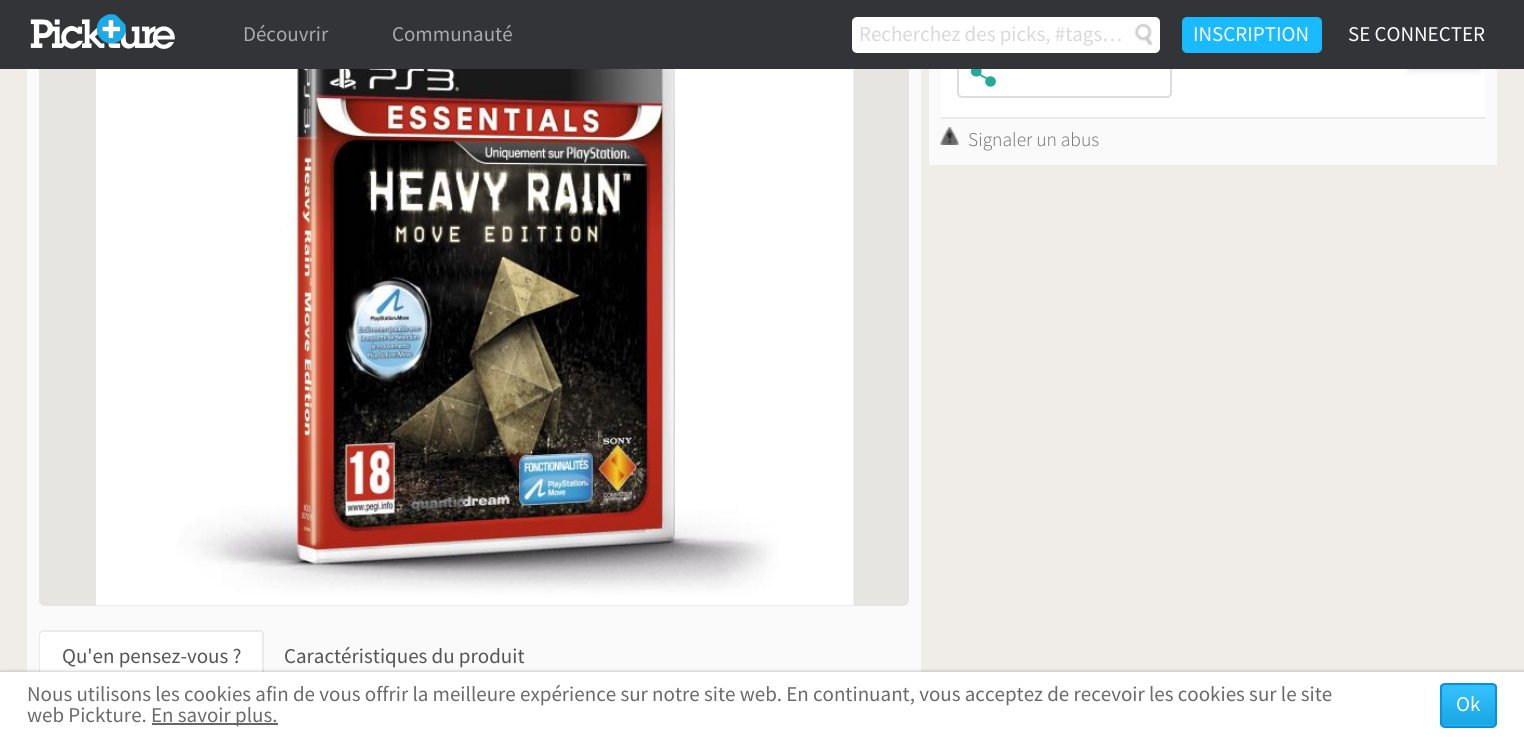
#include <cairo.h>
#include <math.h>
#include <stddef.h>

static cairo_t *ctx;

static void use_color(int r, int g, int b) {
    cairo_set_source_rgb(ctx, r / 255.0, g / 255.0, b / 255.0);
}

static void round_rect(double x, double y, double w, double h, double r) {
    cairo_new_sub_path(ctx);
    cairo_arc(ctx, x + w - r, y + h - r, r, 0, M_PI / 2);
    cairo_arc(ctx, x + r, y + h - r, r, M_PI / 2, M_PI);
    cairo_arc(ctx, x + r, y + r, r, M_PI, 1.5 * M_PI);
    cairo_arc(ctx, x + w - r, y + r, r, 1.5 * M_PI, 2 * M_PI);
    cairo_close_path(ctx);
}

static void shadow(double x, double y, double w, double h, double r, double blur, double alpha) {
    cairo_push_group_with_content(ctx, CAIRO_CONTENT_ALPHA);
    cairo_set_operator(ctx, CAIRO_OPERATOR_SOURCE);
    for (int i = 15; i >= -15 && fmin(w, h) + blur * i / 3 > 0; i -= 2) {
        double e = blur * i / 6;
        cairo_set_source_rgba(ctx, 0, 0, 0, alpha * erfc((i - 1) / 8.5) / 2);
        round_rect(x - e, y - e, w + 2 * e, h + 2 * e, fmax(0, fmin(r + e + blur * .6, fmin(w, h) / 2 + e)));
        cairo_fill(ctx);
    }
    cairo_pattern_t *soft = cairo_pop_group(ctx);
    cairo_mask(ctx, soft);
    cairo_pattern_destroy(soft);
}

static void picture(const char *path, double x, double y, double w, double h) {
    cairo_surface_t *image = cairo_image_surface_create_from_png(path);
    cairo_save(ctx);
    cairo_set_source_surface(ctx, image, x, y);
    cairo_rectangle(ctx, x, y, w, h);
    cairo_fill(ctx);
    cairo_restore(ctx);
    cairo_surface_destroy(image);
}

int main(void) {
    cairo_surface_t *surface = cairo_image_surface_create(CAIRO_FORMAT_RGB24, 1524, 737);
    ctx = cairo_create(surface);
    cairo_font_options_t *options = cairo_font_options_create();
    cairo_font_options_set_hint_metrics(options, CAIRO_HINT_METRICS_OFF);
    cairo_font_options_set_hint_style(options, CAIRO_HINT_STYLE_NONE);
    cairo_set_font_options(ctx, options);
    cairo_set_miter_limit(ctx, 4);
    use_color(240, 237, 233);
    cairo_paint(ctx);
    use_color(250, 250, 250);
    cairo_rectangle(ctx, 929, 69, 568, 96);
    cairo_fill(ctx);
    use_color(255, 255, 255);
    cairo_rectangle(ctx, 941, 69, 544, 48);
    cairo_fill(ctx);
    use_color(204, 204, 204);
    shadow(1410, 0, 68, 68, 0, 4.5, 1);
    picture("img3.png", 970, 69, 26, 18);
    round_rect(958, 43, 213, 54, 4);
    use_color(221, 221, 221);
    cairo_stroke(ctx);
    use_color(250, 250, 250);
    cairo_rectangle(ctx, 27, 69, 894, 603);
    cairo_fill(ctx);
    use_color(231, 229, 226);
    round_rect(39, -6, 870, 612, 6);
    cairo_fill(ctx);
    use_color(51, 52, 56);
    cairo_rectangle(ctx, 0, 0, 1524, 69);
    cairo_fill(ctx);
    picture("img1.png", 30, 14, 145, 35);
    cairo_select_font_face(ctx, "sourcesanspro", CAIRO_FONT_SLANT_NORMAL, CAIRO_FONT_WEIGHT_NORMAL);
    cairo_set_font_size(ctx, 21);
    use_color(170, 170, 170);
    cairo_move_to(ctx, 243, 41);
    cairo_show_text(ctx, "Découvrir");
    cairo_move_to(ctx, 392, 41);
    cairo_show_text(ctx, "Communauté");
    use_color(255, 255, 255);
    round_rect(852, 17, 308, 36, 5);
    cairo_fill(ctx);
    use_color(217, 217, 217);
    cairo_move_to(ctx, 859, 41);
    cairo_show_text(ctx, "Recherchez des picks, #tags…");
    picture("img2.png", 1135, 23, 18, 23);
    use_color(25, 186, 255);
    round_rect(1182, 17, 140, 36, 5);
    cairo_fill(ctx);
    use_color(255, 255, 255);
    cairo_move_to(ctx, 1193, 41);
    cairo_show_text(ctx, "INSCRIPTION");
    cairo_move_to(ctx, 1348, 41);
    cairo_show_text(ctx, "SE CONNECTER");
    use_color(234, 234, 234);
    cairo_rectangle(ctx, 941, 117, 544, 2);
    cairo_fill(ctx);
    picture("img4.png", 940, 127, 19, 18);
    cairo_select_font_face(ctx, "sourcesanspro Light", CAIRO_FONT_SLANT_NORMAL, CAIRO_FONT_WEIGHT_NORMAL);
    cairo_set_font_size(ctx, 19.5);
    use_color(106, 106, 106);
    cairo_move_to(ctx, 968, 146);
    cairo_show_text(ctx, "Signaler un abus");
    picture("img5.png", 96, 69, 758, 537);
    use_color(255, 255, 255);
    cairo_new_path(ctx);
    cairo_move_to(ctx, 44, 630);
    cairo_line_to(ctx, 259, 630);
    cairo_curve_to(ctx, 262, 630, 264, 632, 264, 635);
    cairo_line_to(ctx, 264, 683);
    cairo_line_to(ctx, 39, 683);
    cairo_line_to(ctx, 39, 635);
    cairo_curve_to(ctx, 39, 632, 41, 630, 44, 630);
    cairo_close_path(ctx);
    cairo_fill(ctx);
    use_color(234, 234, 234);
    cairo_set_fill_rule(ctx, CAIRO_FILL_RULE_EVEN_ODD);
    cairo_new_path(ctx);
    cairo_move_to(ctx, 44, 630);
    cairo_line_to(ctx, 260, 630);
    cairo_curve_to(ctx, 262, 630, 264, 632, 264, 634);
    cairo_line_to(ctx, 264, 682);
    cairo_line_to(ctx, 39, 682);
    cairo_line_to(ctx, 39, 634);
    cairo_curve_to(ctx, 39, 632, 41, 630, 44, 630);
    cairo_close_path(ctx);
    cairo_move_to(ctx, 44, 632);
    cairo_line_to(ctx, 260, 632);
    cairo_curve_to(ctx, 261, 632, 262, 633, 262, 634);
    cairo_line_to(ctx, 262, 682);
    cairo_line_to(ctx, 40, 682);
    cairo_line_to(ctx, 40, 634);
    cairo_curve_to(ctx, 40, 633, 42, 632, 44, 632);
    cairo_close_path(ctx);
    cairo_fill(ctx);
    cairo_select_font_face(ctx, "sourcesanspro", CAIRO_FONT_SLANT_NORMAL, CAIRO_FONT_WEIGHT_NORMAL);
    cairo_set_font_size(ctx, 21);
    use_color(85, 85, 85);
    cairo_move_to(ctx, 62, 663);
    cairo_show_text(ctx, "Qu'en pensez-vous ?");
    cairo_move_to(ctx, 284, 663);
    cairo_show_text(ctx, "Caractéristiques du produit");
    use_color(0, 0, 0);
    shadow(0, 672, 1524, 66, 0, 2, 0.3);
    use_color(255, 255, 255);
    cairo_rectangle(ctx, 0, 672, 1524, 65);
    cairo_fill(ctx);
    use_color(106, 106, 106);
    cairo_move_to(ctx, 27, 701);
    cairo_show_text(ctx, "Nous utilisons les cookies afin de vous offrir la meilleure expérience sur notre site web. En continuant, vous acceptez de recevoir les cookies sur le site");
    cairo_move_to(ctx, 27, 722);
    cairo_show_text(ctx, "web Pickture.");
    use_color(102, 102, 102);
    cairo_rectangle(ctx, 152, 723, 126, 2);
    cairo_fill(ctx);
    use_color(106, 106, 106);
    cairo_move_to(ctx, 151, 722);
    cairo_show_text(ctx, "En savoir plus.");
    picture("img6.png", 1440, 683, 57, 44);
    round_rect(1441, 684, 55, 43, 4);
    use_color(7, 144, 223);
    cairo_stroke(ctx);
    use_color(255, 255, 255);
    cairo_move_to(ctx, 1456, 711);
    cairo_show_text(ctx, "Ok");
    cairo_surface_write_to_png(surface, "result.png");
    cairo_font_options_destroy(options);
    cairo_destroy(ctx);
    cairo_surface_destroy(surface);
    return 0;
}
